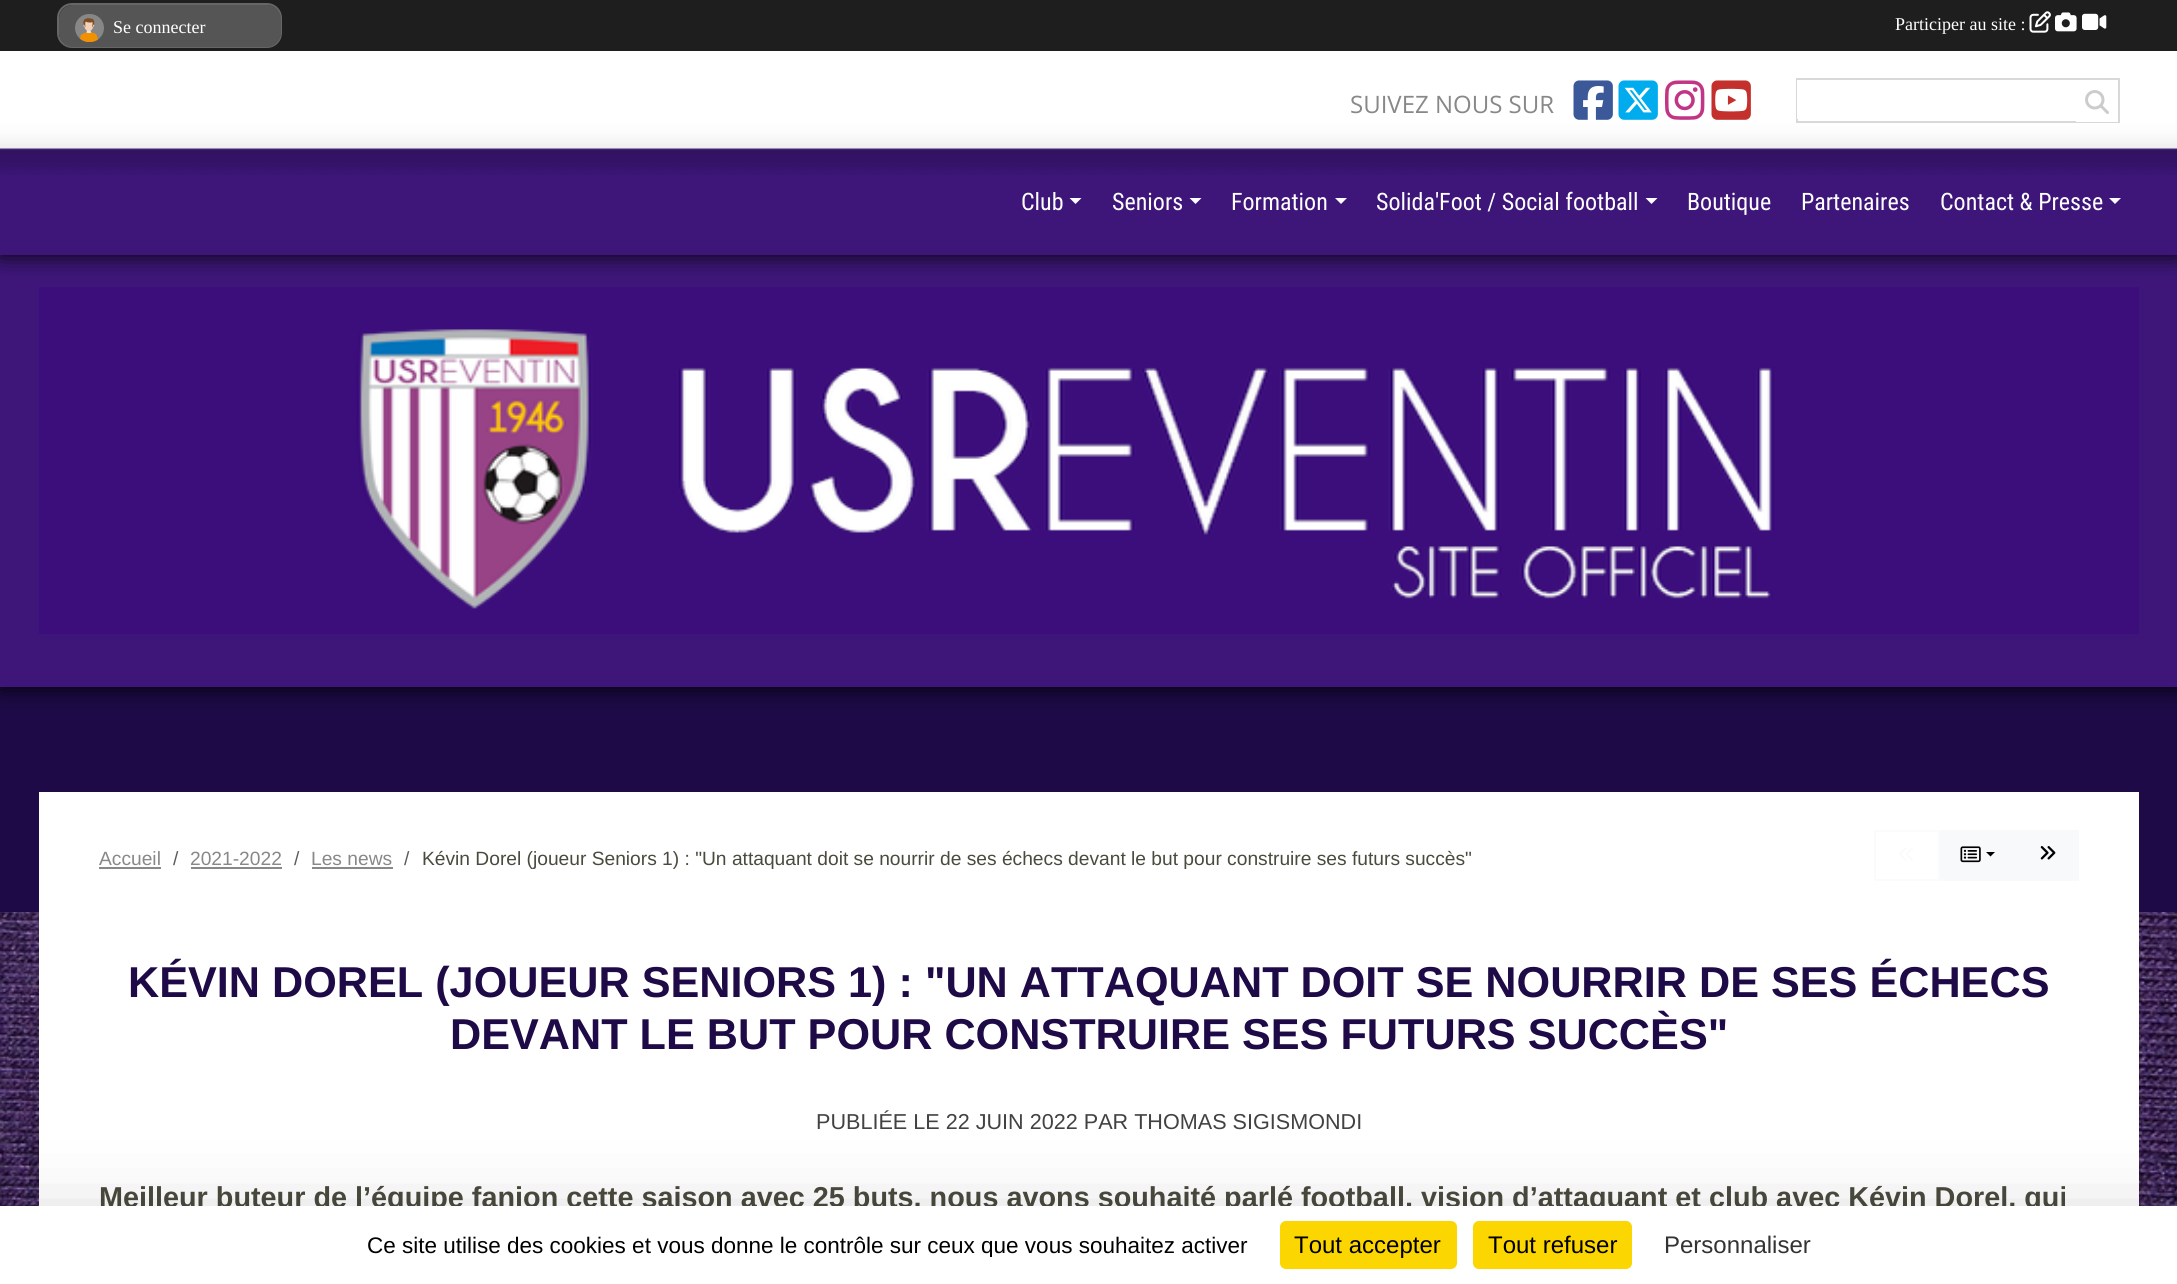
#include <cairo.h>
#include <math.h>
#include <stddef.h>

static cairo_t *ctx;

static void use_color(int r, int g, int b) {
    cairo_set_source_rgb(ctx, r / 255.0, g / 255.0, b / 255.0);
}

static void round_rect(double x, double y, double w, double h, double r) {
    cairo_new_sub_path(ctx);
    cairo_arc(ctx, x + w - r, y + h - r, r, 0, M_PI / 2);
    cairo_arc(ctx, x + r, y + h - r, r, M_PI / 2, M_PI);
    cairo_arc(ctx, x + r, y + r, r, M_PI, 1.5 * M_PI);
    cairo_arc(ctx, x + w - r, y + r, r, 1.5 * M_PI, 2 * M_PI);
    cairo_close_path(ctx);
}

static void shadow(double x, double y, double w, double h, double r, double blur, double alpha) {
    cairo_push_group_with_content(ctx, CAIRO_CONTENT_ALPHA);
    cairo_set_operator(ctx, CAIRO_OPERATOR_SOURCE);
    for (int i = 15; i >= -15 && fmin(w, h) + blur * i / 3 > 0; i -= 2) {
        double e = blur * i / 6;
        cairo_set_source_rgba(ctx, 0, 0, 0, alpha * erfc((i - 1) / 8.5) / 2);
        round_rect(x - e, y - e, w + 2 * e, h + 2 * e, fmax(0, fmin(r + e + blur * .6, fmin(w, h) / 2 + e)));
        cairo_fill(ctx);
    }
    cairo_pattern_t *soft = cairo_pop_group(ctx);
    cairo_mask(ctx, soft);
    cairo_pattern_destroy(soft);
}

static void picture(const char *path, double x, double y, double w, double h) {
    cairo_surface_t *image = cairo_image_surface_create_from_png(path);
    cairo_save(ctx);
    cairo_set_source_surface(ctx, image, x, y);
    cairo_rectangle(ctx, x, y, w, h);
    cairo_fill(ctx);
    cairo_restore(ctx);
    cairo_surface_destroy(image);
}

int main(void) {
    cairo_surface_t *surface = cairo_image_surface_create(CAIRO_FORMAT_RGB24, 2177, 1284);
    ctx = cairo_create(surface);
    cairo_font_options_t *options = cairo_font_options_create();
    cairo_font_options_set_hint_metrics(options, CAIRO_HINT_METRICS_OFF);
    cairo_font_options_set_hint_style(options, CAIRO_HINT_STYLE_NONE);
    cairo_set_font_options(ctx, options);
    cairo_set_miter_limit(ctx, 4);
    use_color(255, 255, 255);
    cairo_paint(ctx);
    use_color(29, 10, 71);
    cairo_rectangle(ctx, 0, 687, 2177, 225);
    cairo_fill(ctx);
    use_color(0, 0, 0);
    shadow(0, 255, 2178, 432, 0, 11, 1);
    use_color(62, 22, 122);
    cairo_rectangle(ctx, 0, 255, 2177, 432);
    cairo_fill(ctx);
    picture("img12.png", 39, 287, 2100, 347);
    use_color(0, 0, 0);
    shadow(0, 51, 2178, 204, 0, 11, 1);
    use_color(30, 30, 30);
    cairo_rectangle(ctx, 0, 0, 2177, 51);
    cairo_fill(ctx);
    use_color(51, 51, 51);
    round_rect(58, 4, 223, 43, 14);
    cairo_fill_preserve(ctx);
    use_color(102, 102, 102);
    cairo_stroke(ctx);
    use_color(85, 85, 85);
    round_rect(59, 5, 222, 42, 14);
    cairo_fill(ctx);
    picture("img1.png", 75, 14, 29, 28);
    cairo_select_font_face(ctx, "Liberation Serif", CAIRO_FONT_SLANT_NORMAL, CAIRO_FONT_WEIGHT_NORMAL);
    cairo_set_font_size(ctx, 18);
    use_color(255, 255, 255);
    cairo_move_to(ctx, 113, 33);
    cairo_show_text(ctx, "Se connecter");
    cairo_move_to(ctx, 1895, 30);
    cairo_show_text(ctx, "Participer au site :");
    picture("img2.png", 2029, 11, 22, 22);
    picture("img3.png", 2055, 12, 22, 20);
    picture("img4.png", 2082, 13, 25, 17);
    picture("img5.png", 0, 912, 2177, 294);
    use_color(62, 22, 122);
    cairo_rectangle(ctx, 0, 148, 2177, 107);
    cairo_fill(ctx);
    picture("img6.png", 0, 51, 2177, 124);
    cairo_select_font_face(ctx, "Open Sans", CAIRO_FONT_SLANT_NORMAL, CAIRO_FONT_WEIGHT_NORMAL);
    cairo_set_font_size(ctx, 24);
    use_color(136, 136, 136);
    cairo_move_to(ctx, 1350, 113);
    cairo_show_text(ctx, "SUIVEZ NOUS SUR");
    picture("img7.png", 1573, 80, 40, 40);
    picture("img8.png", 1618, 80, 40, 40);
    picture("img9.png", 1665, 80, 40, 40);
    picture("img10.png", 1711, 80, 40, 40);
    cairo_rectangle(ctx, 1797, 79, 322, 43);
    use_color(216, 216, 216);
    cairo_stroke(ctx);
    use_color(255, 255, 255);
    cairo_rectangle(ctx, 1797, 80, 1, 39);
    cairo_fill(ctx);
    cairo_rectangle(ctx, 2076, 121, 42, 1);
    cairo_fill(ctx);
    picture("img11.png", 2085, 90, 24, 24);
    cairo_select_font_face(ctx, "Roboto Condensed", CAIRO_FONT_SLANT_NORMAL, CAIRO_FONT_WEIGHT_NORMAL);
    cairo_move_to(ctx, 1021, 210);
    cairo_show_text(ctx, "Club");
    cairo_new_path(ctx);
    cairo_move_to(ctx, 1069.5, 198);
    cairo_line_to(ctx, 1081.5, 198);
    cairo_line_to(ctx, 1075.5, 204);
    cairo_close_path(ctx);
    cairo_fill(ctx);
    cairo_move_to(ctx, 1112, 210);
    cairo_show_text(ctx, "Seniors");
    cairo_new_path(ctx);
    cairo_move_to(ctx, 1189.5, 198);
    cairo_line_to(ctx, 1201.5, 198);
    cairo_line_to(ctx, 1195.5, 204);
    cairo_close_path(ctx);
    cairo_fill(ctx);
    cairo_move_to(ctx, 1231, 210);
    cairo_show_text(ctx, "Formation");
    cairo_new_path(ctx);
    cairo_move_to(ctx, 1335, 198);
    cairo_line_to(ctx, 1347, 198);
    cairo_line_to(ctx, 1341, 204);
    cairo_close_path(ctx);
    cairo_fill(ctx);
    cairo_move_to(ctx, 1376, 210);
    cairo_show_text(ctx, "Solida'Foot / Social football");
    cairo_new_path(ctx);
    cairo_move_to(ctx, 1645.5, 198);
    cairo_line_to(ctx, 1657.5, 198);
    cairo_line_to(ctx, 1651.5, 204);
    cairo_close_path(ctx);
    cairo_fill(ctx);
    cairo_move_to(ctx, 1687, 210);
    cairo_show_text(ctx, "Boutique");
    cairo_move_to(ctx, 1801, 210);
    cairo_show_text(ctx, "Partenaires");
    cairo_move_to(ctx, 1940, 210);
    cairo_show_text(ctx, "Contact & Presse");
    cairo_new_path(ctx);
    cairo_move_to(ctx, 2109, 198);
    cairo_line_to(ctx, 2121, 198);
    cairo_line_to(ctx, 2115, 204);
    cairo_close_path(ctx);
    cairo_fill(ctx);
    cairo_rectangle(ctx, 39, 792, 2100, 414);
    cairo_fill(ctx);
    cairo_select_font_face(ctx, "Liberation Sans", CAIRO_FONT_SLANT_NORMAL, CAIRO_FONT_WEIGHT_NORMAL);
    cairo_set_font_size(ctx, 19.2);
    use_color(136, 136, 136);
    cairo_move_to(ctx, 99, 865);
    cairo_show_text(ctx, "Accueil");
    cairo_rectangle(ctx, 99, 867, 62, 2);
    cairo_fill(ctx);
    use_color(89, 92, 95);
    cairo_move_to(ctx, 173, 865);
    cairo_show_text(ctx, "/");
    use_color(136, 136, 136);
    cairo_move_to(ctx, 190, 865);
    cairo_show_text(ctx, "2021-2022");
    cairo_rectangle(ctx, 191, 867, 91, 2);
    cairo_fill(ctx);
    use_color(89, 92, 95);
    cairo_move_to(ctx, 294, 865);
    cairo_show_text(ctx, "/");
    use_color(136, 136, 136);
    cairo_move_to(ctx, 311, 865);
    cairo_show_text(ctx, "Les news");
    cairo_rectangle(ctx, 312, 867, 81, 2);
    cairo_fill(ctx);
    use_color(89, 92, 95);
    cairo_move_to(ctx, 404, 865);
    cairo_show_text(ctx, "/");
    use_color(74, 74, 62);
    cairo_move_to(ctx, 422, 865);
    cairo_show_text(ctx, "Kévin Dorel (joueur Seniors 1) : \"Un attaquant doit se nourrir de ses échecs devant le but pour construire ses futurs succès\"");
    cairo_rectangle(ctx, 1875, 831, 64, 49);
    use_color(250, 251, 252);
    cairo_stroke(ctx);
    picture("img13.png", 1899, 848, 14, 13);
    use_color(248, 249, 250);
    cairo_rectangle(ctx, 1940, 830, 139, 51);
    cairo_fill(ctx);
    picture("img14.png", 1960, 846, 21, 17);
    use_color(0, 0, 0);
    cairo_new_path(ctx);
    cairo_move_to(ctx, 1986, 852);
    cairo_line_to(ctx, 1995, 852);
    cairo_line_to(ctx, 1990.5, 856.5);
    cairo_close_path(ctx);
    cairo_fill(ctx);
    picture("img15.png", 2040, 846, 16, 14);
    cairo_select_font_face(ctx, "Liberation Sans", CAIRO_FONT_SLANT_NORMAL, CAIRO_FONT_WEIGHT_BOLD);
    cairo_set_font_size(ctx, 43.2);
    use_color(29, 10, 71);
    cairo_move_to(ctx, 128, 997);
    cairo_show_text(ctx, "KÉVIN DOREL (JOUEUR SENIORS 1) : \"UN ATTAQUANT DOIT SE NOURRIR DE SES ÉCHECS");
    cairo_move_to(ctx, 450, 1049);
    cairo_show_text(ctx, "DEVANT LE BUT POUR CONSTRUIRE SES FUTURS SUCCÈS\"");
    cairo_select_font_face(ctx, "Liberation Sans", CAIRO_FONT_SLANT_NORMAL, CAIRO_FONT_WEIGHT_NORMAL);
    cairo_set_font_size(ctx, 21.6);
    use_color(66, 66, 66);
    cairo_move_to(ctx, 816, 1129);
    cairo_show_text(ctx, "PUBLIÉE LE 22 JUIN 2022 PAR THOMAS SIGISMONDI");
    cairo_select_font_face(ctx, "Liberation Sans", CAIRO_FONT_SLANT_NORMAL, CAIRO_FONT_WEIGHT_BOLD);
    cairo_set_font_size(ctx, 28.8);
    use_color(74, 74, 62);
    cairo_move_to(ctx, 99, 1207);
    cairo_show_text(ctx, "Meilleur buteur de l’équipe fanion cette saison avec 25 buts, nous avons souhaité parlé football, vision d’attaquant et club avec Kévin Dorel, qui");
    use_color(0, 0, 0);
    shadow(0, 1236, 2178, 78, 0, 45, 0.25);
    use_color(255, 255, 255);
    cairo_rectangle(ctx, 0, 1206, 2177, 78);
    cairo_fill(ctx);
    cairo_save(ctx);
    cairo_rectangle(ctx, 353, 1232, 910, 25);
    cairo_clip(ctx);
    cairo_select_font_face(ctx, "Liberation Sans", CAIRO_FONT_SLANT_NORMAL, CAIRO_FONT_WEIGHT_NORMAL);
    cairo_set_font_size(ctx, 22.5);
    use_color(0, 0, 0);
    cairo_move_to(ctx, 367, 1253);
    cairo_show_text(ctx, "Ce site utilise des cookies et vous donne le contrôle sur ceux que vous souhaitez activer");
    cairo_restore(ctx);
    use_color(251, 214, 0);
    round_rect(1280, 1221, 177, 48, 6);
    cairo_fill(ctx);
    cairo_select_font_face(ctx, "Liberation Sans", CAIRO_FONT_SLANT_NORMAL, CAIRO_FONT_WEIGHT_NORMAL);
    cairo_set_font_size(ctx, 24);
    use_color(0, 0, 0);
    cairo_move_to(ctx, 1294, 1253);
    cairo_show_text(ctx, "Tout accepter");
    use_color(251, 214, 0);
    round_rect(1473, 1221, 159, 48, 6);
    cairo_fill(ctx);
    use_color(0, 0, 0);
    cairo_move_to(ctx, 1488, 1253);
    cairo_show_text(ctx, "Tout refuser");
    use_color(51, 51, 51);
    cairo_move_to(ctx, 1664, 1253);
    cairo_show_text(ctx, "Personnaliser");
    cairo_surface_write_to_png(surface, "result.png");
    cairo_font_options_destroy(options);
    cairo_destroy(ctx);
    cairo_surface_destroy(surface);
    return 0;
}
